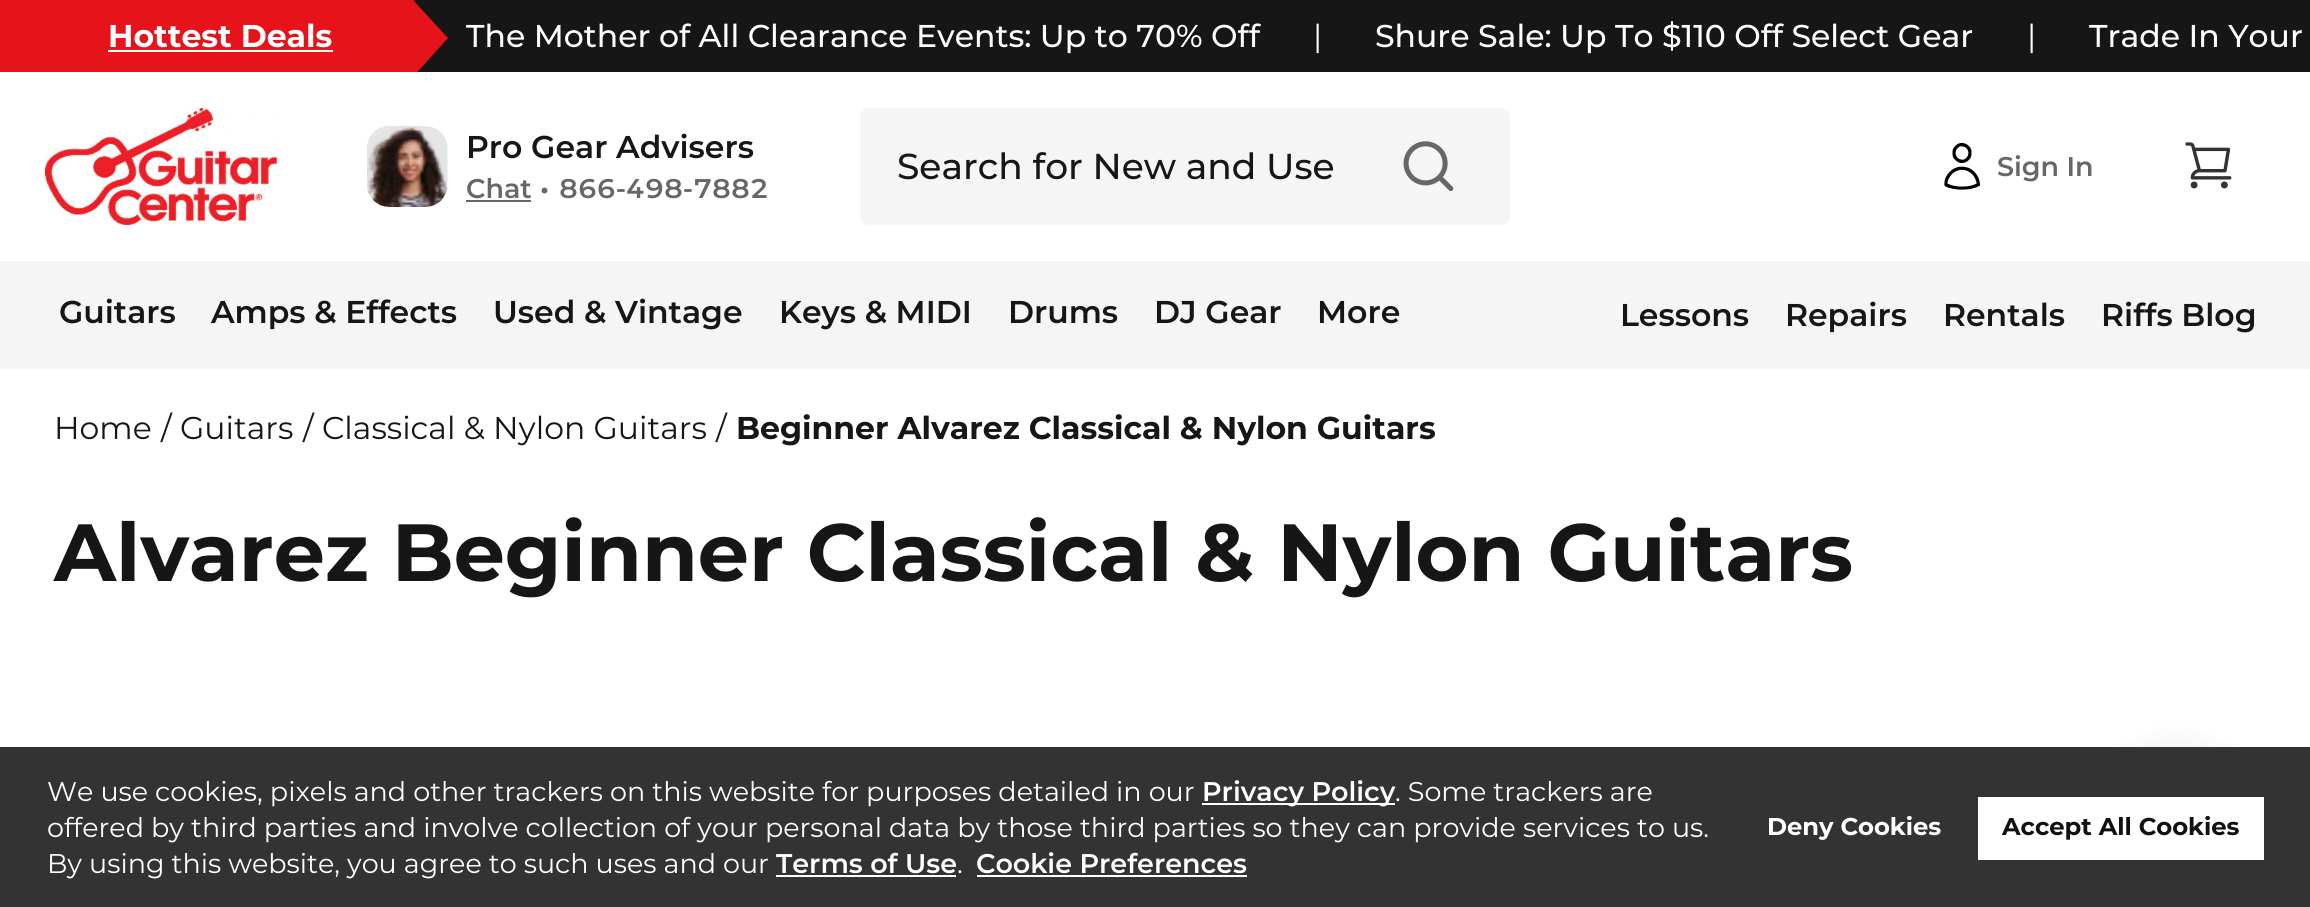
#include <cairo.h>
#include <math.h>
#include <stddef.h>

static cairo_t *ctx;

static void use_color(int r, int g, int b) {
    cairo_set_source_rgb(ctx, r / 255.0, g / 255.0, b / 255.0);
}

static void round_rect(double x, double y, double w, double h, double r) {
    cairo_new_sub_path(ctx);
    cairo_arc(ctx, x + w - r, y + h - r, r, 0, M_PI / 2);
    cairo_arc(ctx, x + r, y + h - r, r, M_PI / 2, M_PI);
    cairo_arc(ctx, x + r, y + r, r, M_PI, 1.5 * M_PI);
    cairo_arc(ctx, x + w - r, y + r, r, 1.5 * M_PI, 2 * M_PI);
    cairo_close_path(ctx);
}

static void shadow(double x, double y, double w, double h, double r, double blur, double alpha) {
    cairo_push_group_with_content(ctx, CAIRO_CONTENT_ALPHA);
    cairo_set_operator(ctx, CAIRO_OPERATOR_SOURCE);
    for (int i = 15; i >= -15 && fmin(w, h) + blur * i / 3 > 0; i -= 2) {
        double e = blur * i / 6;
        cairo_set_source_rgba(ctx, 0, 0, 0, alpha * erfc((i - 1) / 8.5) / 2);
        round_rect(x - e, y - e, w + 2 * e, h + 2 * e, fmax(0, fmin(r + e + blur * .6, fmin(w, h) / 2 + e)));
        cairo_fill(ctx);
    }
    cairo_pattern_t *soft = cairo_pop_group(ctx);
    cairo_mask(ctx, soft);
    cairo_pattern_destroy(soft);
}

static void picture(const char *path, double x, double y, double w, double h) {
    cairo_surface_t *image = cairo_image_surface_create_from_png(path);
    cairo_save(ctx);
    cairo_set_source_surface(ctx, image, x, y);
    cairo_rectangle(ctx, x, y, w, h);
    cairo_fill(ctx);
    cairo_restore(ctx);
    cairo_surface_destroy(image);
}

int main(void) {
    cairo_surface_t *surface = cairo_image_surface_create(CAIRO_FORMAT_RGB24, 2310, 907);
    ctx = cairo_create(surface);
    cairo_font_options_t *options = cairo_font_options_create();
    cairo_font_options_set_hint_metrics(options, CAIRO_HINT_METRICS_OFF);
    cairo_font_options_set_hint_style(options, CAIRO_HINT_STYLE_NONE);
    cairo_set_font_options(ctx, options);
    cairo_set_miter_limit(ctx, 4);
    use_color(255, 255, 255);
    cairo_paint(ctx);
    use_color(22, 22, 22);
    cairo_rectangle(ctx, 414, 0, 1896, 72);
    cairo_fill(ctx);
    use_color(231, 19, 26);
    cairo_rectangle(ctx, 0, 0, 414, 72);
    cairo_fill(ctx);
    cairo_select_font_face(ctx, "Montserrat", CAIRO_FONT_SLANT_NORMAL, CAIRO_FONT_WEIGHT_BOLD);
    cairo_set_font_size(ctx, 31.5);
    use_color(255, 255, 255);
    cairo_move_to(ctx, 108, 47);
    cairo_show_text(ctx, "Hottest Deals");
    cairo_rectangle(ctx, 108, 50, 225, 2);
    cairo_fill(ctx);
    cairo_save(ctx);
    cairo_rectangle(ctx, 0, 0, 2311, 72);
    cairo_clip(ctx);
    use_color(231, 19, 26);
    cairo_new_path(ctx);
    cairo_move_to(ctx, 412, 78);
    cairo_line_to(ctx, 412, -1);
    cairo_line_to(ctx, 448, 38);
    cairo_close_path(ctx);
    cairo_fill(ctx);
    cairo_restore(ctx);
    cairo_select_font_face(ctx, "Montserrat Medium", CAIRO_FONT_SLANT_NORMAL, CAIRO_FONT_WEIGHT_NORMAL);
    cairo_move_to(ctx, 466, 47);
    cairo_show_text(ctx, "The Mother of All Clearance Events: Up to 70% Off");
    cairo_select_font_face(ctx, "Montserrat", CAIRO_FONT_SLANT_NORMAL, CAIRO_FONT_WEIGHT_NORMAL);
    cairo_move_to(ctx, 1313, 47);
    cairo_show_text(ctx, "|");
    cairo_select_font_face(ctx, "Montserrat Medium", CAIRO_FONT_SLANT_NORMAL, CAIRO_FONT_WEIGHT_NORMAL);
    cairo_move_to(ctx, 1375, 47);
    cairo_show_text(ctx, "Shure Sale: Up To $110 Off Select Gear");
    cairo_select_font_face(ctx, "Montserrat", CAIRO_FONT_SLANT_NORMAL, CAIRO_FONT_WEIGHT_NORMAL);
    cairo_move_to(ctx, 2027, 47);
    cairo_show_text(ctx, "|");
    cairo_select_font_face(ctx, "Montserrat Medium", CAIRO_FONT_SLANT_NORMAL, CAIRO_FONT_WEIGHT_NORMAL);
    cairo_move_to(ctx, 2089, 47);
    cairo_show_text(ctx, "Trade In Your");
    picture("img1.png", 45, 108, 232, 117);
    picture("img2.png", 367, 126, 81, 81);
    cairo_select_font_face(ctx, "Montserrat SemiBold", CAIRO_FONT_SLANT_NORMAL, CAIRO_FONT_WEIGHT_NORMAL);
    use_color(22, 22, 22);
    cairo_move_to(ctx, 466, 158);
    cairo_show_text(ctx, "Pro Gear Advisers");
    cairo_set_font_size(ctx, 27);
    use_color(103, 103, 103);
    cairo_move_to(ctx, 466, 198);
    cairo_show_text(ctx, "Chat");
    cairo_rectangle(ctx, 466, 200, 65, 2);
    cairo_fill(ctx);
    cairo_move_to(ctx, 540, 198);
    cairo_show_text(ctx, "•");
    cairo_select_font_face(ctx, "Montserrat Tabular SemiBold", CAIRO_FONT_SLANT_NORMAL, CAIRO_FONT_WEIGHT_NORMAL);
    cairo_move_to(ctx, 559, 198);
    cairo_show_text(ctx, "866-498-7882");
    use_color(245, 245, 245);
    round_rect(860, 108, 650, 117, 9);
    cairo_fill(ctx);
    cairo_select_font_face(ctx, "Montserrat Medium", CAIRO_FONT_SLANT_NORMAL, CAIRO_FONT_WEIGHT_NORMAL);
    cairo_set_font_size(ctx, 36);
    use_color(22, 22, 22);
    cairo_move_to(ctx, 897, 179);
    cairo_show_text(ctx, "Search for New and Use");
    picture("img3.png", 1403, 141, 51, 50);
    picture("img4.png", 1944, 142, 36, 48);
    cairo_select_font_face(ctx, "Montserrat SemiBold", CAIRO_FONT_SLANT_NORMAL, CAIRO_FONT_WEIGHT_NORMAL);
    cairo_set_font_size(ctx, 27);
    use_color(103, 103, 103);
    cairo_move_to(ctx, 1997, 176);
    cairo_show_text(ctx, "Sign In");
    picture("img5.png", 2185, 142, 47, 47);
    use_color(245, 245, 245);
    cairo_rectangle(ctx, 0, 261, 2310, 108);
    cairo_fill(ctx);
    cairo_set_font_size(ctx, 31.5);
    use_color(22, 22, 22);
    cairo_move_to(ctx, 59, 323);
    cairo_show_text(ctx, "Guitars");
    cairo_move_to(ctx, 211, 323);
    cairo_show_text(ctx, "Amps & Effects");
    cairo_move_to(ctx, 493, 323);
    cairo_show_text(ctx, "Used & Vintage");
    cairo_move_to(ctx, 779, 323);
    cairo_show_text(ctx, "Keys & MIDI");
    cairo_move_to(ctx, 1008, 323);
    cairo_show_text(ctx, "Drums");
    cairo_move_to(ctx, 1154, 323);
    cairo_show_text(ctx, "DJ Gear");
    cairo_move_to(ctx, 1317, 323);
    cairo_show_text(ctx, "More");
    cairo_move_to(ctx, 1620, 326);
    cairo_show_text(ctx, "Lessons");
    cairo_move_to(ctx, 1785, 326);
    cairo_show_text(ctx, "Repairs");
    cairo_move_to(ctx, 1943, 326);
    cairo_show_text(ctx, "Rentals");
    cairo_move_to(ctx, 2101, 326);
    cairo_show_text(ctx, "Riffs Blog");
    cairo_select_font_face(ctx, "Montserrat", CAIRO_FONT_SLANT_NORMAL, CAIRO_FONT_WEIGHT_NORMAL);
    cairo_move_to(ctx, 54, 439);
    cairo_show_text(ctx, "Home");
    cairo_move_to(ctx, 161, 439);
    cairo_show_text(ctx, "/");
    cairo_move_to(ctx, 180, 439);
    cairo_show_text(ctx, "Guitars");
    cairo_move_to(ctx, 303, 439);
    cairo_show_text(ctx, "/");
    cairo_move_to(ctx, 322, 439);
    cairo_show_text(ctx, "Classical & Nylon Guitars");
    cairo_move_to(ctx, 716, 439);
    cairo_show_text(ctx, "/");
    cairo_select_font_face(ctx, "Montserrat", CAIRO_FONT_SLANT_NORMAL, CAIRO_FONT_WEIGHT_BOLD);
    cairo_move_to(ctx, 736, 439);
    cairo_show_text(ctx, "Beginner Alvarez Classical & Nylon Guitars");
    cairo_set_font_size(ctx, 81);
    cairo_move_to(ctx, 54, 581);
    cairo_show_text(ctx, "Alvarez Beginner Classical & Nylon Guitars");
    use_color(0, 0, 0);
    shadow(2113, 756, 126, 126, 63, 18, 0.13);
    use_color(51, 51, 51);
    cairo_rectangle(ctx, 0, 747, 2310, 160);
    cairo_fill(ctx);
    cairo_select_font_face(ctx, "Montserrat", CAIRO_FONT_SLANT_NORMAL, CAIRO_FONT_WEIGHT_NORMAL);
    cairo_set_font_size(ctx, 27);
    use_color(255, 255, 255);
    cairo_move_to(ctx, 47, 801);
    cairo_show_text(ctx, "We use cookies, pixels and other trackers on this website for purposes detailed in our");
    cairo_rectangle(ctx, 1202, 803, 193, 2);
    cairo_fill(ctx);
    cairo_select_font_face(ctx, "Montserrat SemiBold", CAIRO_FONT_SLANT_NORMAL, CAIRO_FONT_WEIGHT_NORMAL);
    cairo_move_to(ctx, 1202, 801);
    cairo_show_text(ctx, "Privacy Policy");
    cairo_select_font_face(ctx, "Montserrat", CAIRO_FONT_SLANT_NORMAL, CAIRO_FONT_WEIGHT_NORMAL);
    cairo_move_to(ctx, 1395, 801);
    cairo_show_text(ctx, ". Some trackers are");
    cairo_move_to(ctx, 47, 837);
    cairo_show_text(ctx, "offered by third parties and involve collection of your personal data by those third parties so they can provide services to us.");
    cairo_move_to(ctx, 47, 873);
    cairo_show_text(ctx, "By using this website, you agree to such uses and our");
    cairo_select_font_face(ctx, "Montserrat SemiBold", CAIRO_FONT_SLANT_NORMAL, CAIRO_FONT_WEIGHT_NORMAL);
    cairo_move_to(ctx, 776, 873);
    cairo_show_text(ctx, "Terms of Use");
    cairo_rectangle(ctx, 776, 875, 180, 2);
    cairo_fill(ctx);
    cairo_select_font_face(ctx, "Montserrat", CAIRO_FONT_SLANT_NORMAL, CAIRO_FONT_WEIGHT_NORMAL);
    cairo_move_to(ctx, 957, 873);
    cairo_show_text(ctx, ".");
    cairo_select_font_face(ctx, "Montserrat SemiBold", CAIRO_FONT_SLANT_NORMAL, CAIRO_FONT_WEIGHT_NORMAL);
    cairo_move_to(ctx, 976, 873);
    cairo_show_text(ctx, "Cookie Preferences");
    cairo_rectangle(ctx, 977, 875, 270, 2);
    cairo_fill(ctx);
    cairo_select_font_face(ctx, "Montserrat", CAIRO_FONT_SLANT_NORMAL, CAIRO_FONT_WEIGHT_BOLD);
    cairo_set_font_size(ctx, 24.25);
    cairo_move_to(ctx, 1767, 835);
    cairo_show_text(ctx, "Deny Cookies");
    cairo_rectangle(ctx, 1978, 797, 286, 63);
    cairo_fill(ctx);
    use_color(18, 16, 16);
    cairo_move_to(ctx, 2002, 835);
    cairo_show_text(ctx, "Accept All Cookies");
    cairo_surface_write_to_png(surface, "result.png");
    cairo_font_options_destroy(options);
    cairo_destroy(ctx);
    cairo_surface_destroy(surface);
    return 0;
}
